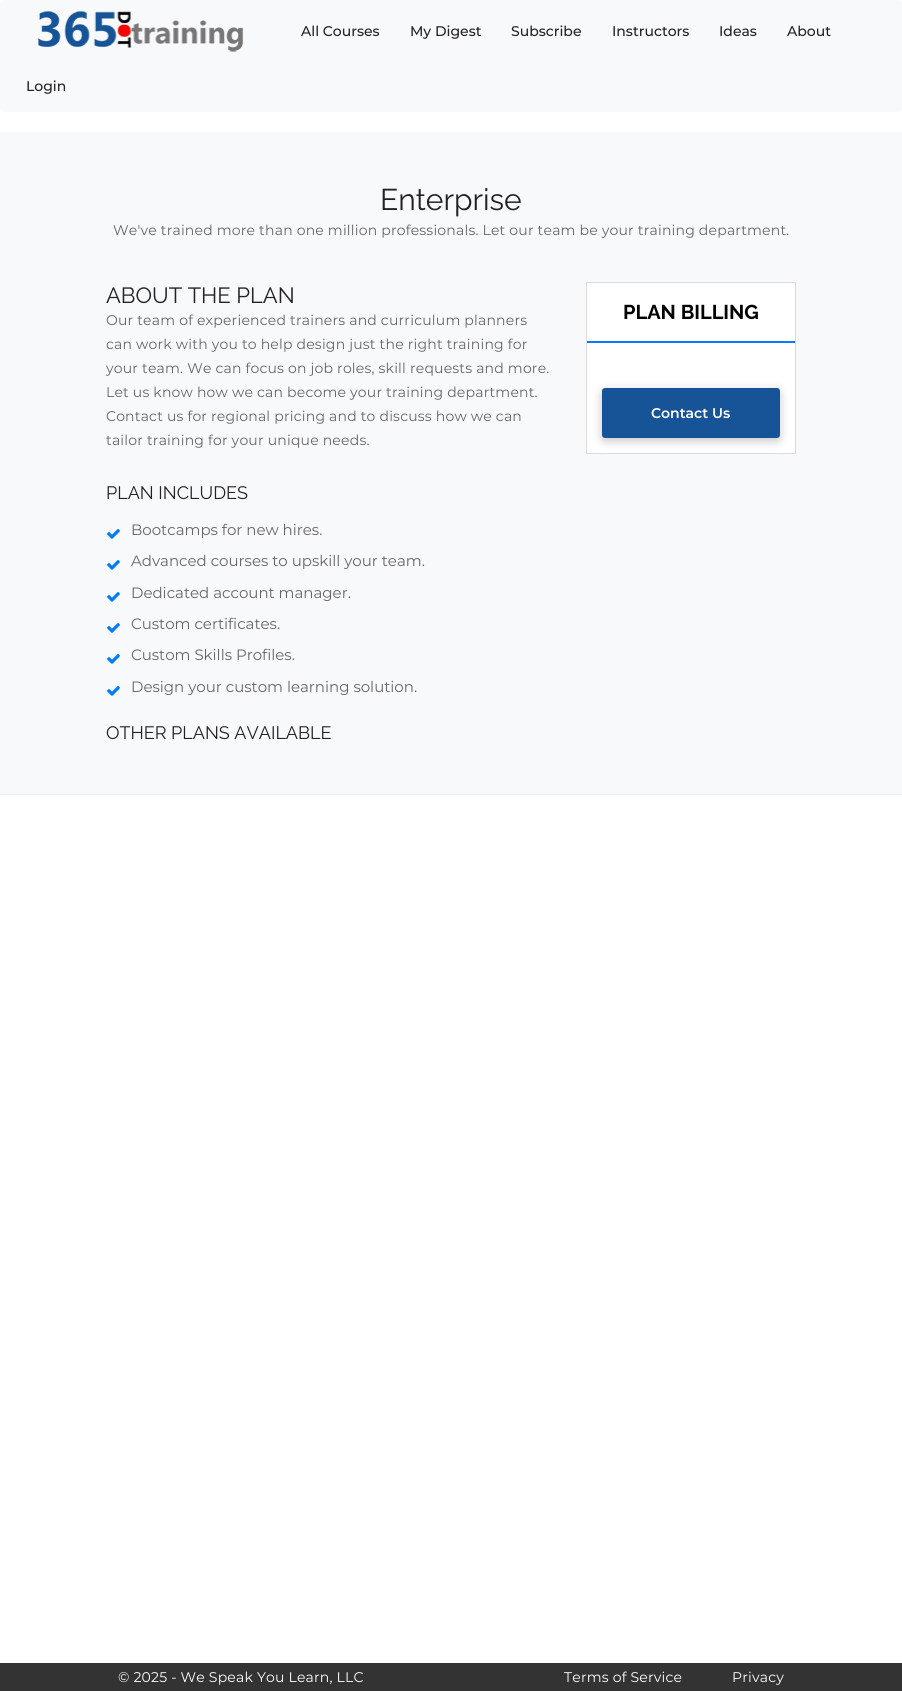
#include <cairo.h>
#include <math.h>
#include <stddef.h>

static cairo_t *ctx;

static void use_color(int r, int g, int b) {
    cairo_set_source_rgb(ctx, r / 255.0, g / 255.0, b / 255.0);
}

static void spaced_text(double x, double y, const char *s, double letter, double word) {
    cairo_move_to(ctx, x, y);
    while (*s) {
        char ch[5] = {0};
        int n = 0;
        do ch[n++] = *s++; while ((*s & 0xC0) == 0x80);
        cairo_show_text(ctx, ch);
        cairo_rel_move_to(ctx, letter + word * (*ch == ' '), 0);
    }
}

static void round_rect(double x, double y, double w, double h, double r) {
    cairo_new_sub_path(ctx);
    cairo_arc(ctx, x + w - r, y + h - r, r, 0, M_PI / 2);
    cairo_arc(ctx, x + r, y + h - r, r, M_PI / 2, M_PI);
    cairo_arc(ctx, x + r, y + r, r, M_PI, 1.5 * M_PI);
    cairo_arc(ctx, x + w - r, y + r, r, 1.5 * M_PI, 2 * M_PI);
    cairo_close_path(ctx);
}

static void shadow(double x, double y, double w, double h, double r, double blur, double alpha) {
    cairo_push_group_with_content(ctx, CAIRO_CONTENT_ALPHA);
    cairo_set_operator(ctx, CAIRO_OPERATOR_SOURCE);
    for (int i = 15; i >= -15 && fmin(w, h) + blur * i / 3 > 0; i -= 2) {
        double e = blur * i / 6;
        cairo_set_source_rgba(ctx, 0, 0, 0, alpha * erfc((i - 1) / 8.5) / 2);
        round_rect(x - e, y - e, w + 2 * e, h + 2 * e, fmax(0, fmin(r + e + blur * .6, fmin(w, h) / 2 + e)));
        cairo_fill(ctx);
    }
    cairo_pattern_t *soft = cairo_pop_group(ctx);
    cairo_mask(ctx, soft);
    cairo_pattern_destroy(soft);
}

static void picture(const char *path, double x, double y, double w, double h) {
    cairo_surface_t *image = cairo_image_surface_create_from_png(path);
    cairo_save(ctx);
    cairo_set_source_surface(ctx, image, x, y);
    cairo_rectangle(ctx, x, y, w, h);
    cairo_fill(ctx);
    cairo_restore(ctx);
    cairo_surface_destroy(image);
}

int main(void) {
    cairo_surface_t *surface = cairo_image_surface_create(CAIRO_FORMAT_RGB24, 902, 1691);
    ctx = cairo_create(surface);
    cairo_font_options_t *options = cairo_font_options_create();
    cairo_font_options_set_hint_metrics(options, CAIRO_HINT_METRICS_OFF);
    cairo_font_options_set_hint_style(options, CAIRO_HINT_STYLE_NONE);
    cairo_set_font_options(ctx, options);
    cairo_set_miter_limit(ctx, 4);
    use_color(255, 255, 255);
    cairo_paint(ctx);
    use_color(248, 249, 250);
    round_rect(0, 0, 902, 112, 4);
    cairo_fill(ctx);
    picture("img1.png", 38, 11, 206, 41);
    cairo_select_font_face(ctx, "Montserrat Medium", CAIRO_FONT_SLANT_NORMAL, CAIRO_FONT_WEIGHT_NORMAL);
    cairo_set_font_size(ctx, 14);
    use_color(34, 34, 34);
    cairo_move_to(ctx, 301, 36);
    cairo_show_text(ctx, "All Courses");
    cairo_move_to(ctx, 410, 36);
    cairo_show_text(ctx, "My Digest");
    cairo_move_to(ctx, 511, 36);
    cairo_show_text(ctx, "Subscribe");
    cairo_move_to(ctx, 612, 36);
    cairo_show_text(ctx, "Instructors");
    cairo_move_to(ctx, 719, 36);
    cairo_show_text(ctx, "Ideas");
    cairo_move_to(ctx, 787, 36);
    cairo_show_text(ctx, "About");
    cairo_move_to(ctx, 26, 91);
    cairo_show_text(ctx, "Login");
    use_color(248, 249, 250);
    cairo_rectangle(ctx, 0, 132, 902, 662);
    cairo_fill(ctx);
    cairo_select_font_face(ctx, "Raleway", CAIRO_FONT_SLANT_NORMAL, CAIRO_FONT_WEIGHT_NORMAL);
    cairo_set_font_size(ctx, 30);
    use_color(34, 34, 34);
    cairo_move_to(ctx, 380, 210);
    cairo_show_text(ctx, "Enterprise");
    cairo_select_font_face(ctx, "Montserrat", CAIRO_FONT_SLANT_NORMAL, CAIRO_FONT_WEIGHT_NORMAL);
    cairo_set_font_size(ctx, 14);
    use_color(102, 102, 102);
    spaced_text(113, 235, "We've trained more than one million professionals. Let our team be your training department.", 0.2, 0);
    cairo_select_font_face(ctx, "Raleway", CAIRO_FONT_SLANT_NORMAL, CAIRO_FONT_WEIGHT_NORMAL);
    cairo_set_font_size(ctx, 22);
    use_color(34, 34, 34);
    cairo_move_to(ctx, 106, 303);
    cairo_show_text(ctx, "ABOUT THE PLAN");
    cairo_select_font_face(ctx, "Montserrat", CAIRO_FONT_SLANT_NORMAL, CAIRO_FONT_WEIGHT_NORMAL);
    cairo_set_font_size(ctx, 14);
    use_color(102, 102, 102);
    spaced_text(106, 325, "Our team of experienced trainers and curriculum planners", 0.2, 0);
    spaced_text(106, 349, "can work with you to help design just the right training for", 0.2, 0);
    spaced_text(106, 373, "your team. We can focus on job roles, skill requests and more.", 0.2, 0);
    spaced_text(106, 397, "Let us know how we can become your training department.", 0.2, 0);
    spaced_text(106, 421, "Contact us for regional pricing and to discuss how we can", 0.2, 0);
    spaced_text(106, 445, "tailor training for your unique needs.", 0.2, 0);
    cairo_select_font_face(ctx, "Raleway", CAIRO_FONT_SLANT_NORMAL, CAIRO_FONT_WEIGHT_NORMAL);
    cairo_set_font_size(ctx, 18);
    use_color(34, 34, 34);
    cairo_move_to(ctx, 106, 499);
    cairo_show_text(ctx, "PLAN INCLUDES");
    picture("img2.png", 107, 529, 13, 10);
    cairo_select_font_face(ctx, "Montserrat", CAIRO_FONT_SLANT_NORMAL, CAIRO_FONT_WEIGHT_NORMAL);
    cairo_set_font_size(ctx, 15);
    use_color(102, 102, 102);
    cairo_move_to(ctx, 131, 535);
    cairo_show_text(ctx, "Bootcamps for new hires.");
    picture("img2.png", 107, 560, 13, 10);
    cairo_move_to(ctx, 131, 566);
    cairo_show_text(ctx, "Advanced courses to upskill your team.");
    picture("img2.png", 107, 592, 13, 10);
    cairo_move_to(ctx, 131, 598);
    cairo_show_text(ctx, "Dedicated account manager.");
    picture("img2.png", 107, 623, 13, 10);
    cairo_move_to(ctx, 131, 629);
    cairo_show_text(ctx, "Custom certificates.");
    picture("img2.png", 107, 654, 13, 10);
    cairo_move_to(ctx, 131, 660);
    cairo_show_text(ctx, "Custom Skills Profiles.");
    picture("img2.png", 107, 686, 13, 10);
    cairo_move_to(ctx, 131, 692);
    cairo_show_text(ctx, "Design your custom learning solution.");
    cairo_select_font_face(ctx, "Raleway", CAIRO_FONT_SLANT_NORMAL, CAIRO_FONT_WEIGHT_NORMAL);
    cairo_set_font_size(ctx, 18);
    use_color(34, 34, 34);
    cairo_move_to(ctx, 106, 739);
    cairo_show_text(ctx, "OTHER PLANS AVAILABLE");
    use_color(255, 255, 255);
    cairo_rectangle(ctx, 586.5, 282.5, 209, 171);
    cairo_fill_preserve(ctx);
    use_color(219, 219, 219);
    cairo_set_line_width(ctx, 1);
    cairo_stroke(ctx);
    use_color(0, 123, 255);
    cairo_rectangle(ctx, 587, 341, 208, 2);
    cairo_fill(ctx);
    cairo_select_font_face(ctx, "Raleway", CAIRO_FONT_SLANT_NORMAL, CAIRO_FONT_WEIGHT_BOLD);
    cairo_set_font_size(ctx, 20);
    use_color(0, 0, 0);
    cairo_move_to(ctx, 623, 319);
    cairo_show_text(ctx, "PLAN BILLING");
    use_color(0, 0, 0);
    shadow(602, 391, 178, 50, 3, 5, 0.22);
    use_color(23, 84, 151);
    round_rect(602, 388, 178, 50, 3);
    cairo_fill(ctx);
    cairo_select_font_face(ctx, "Montserrat SemiBold", CAIRO_FONT_SLANT_NORMAL, CAIRO_FONT_WEIGHT_NORMAL);
    cairo_set_font_size(ctx, 14);
    use_color(255, 255, 255);
    cairo_move_to(ctx, 651, 418);
    cairo_show_text(ctx, "Contact Us");
    use_color(238, 238, 238);
    cairo_rectangle(ctx, 0, 794, 902, 1);
    cairo_fill(ctx);
    use_color(51, 51, 51);
    cairo_rectangle(ctx, 0, 1663, 902, 28);
    cairo_fill(ctx);
    cairo_select_font_face(ctx, "Montserrat", CAIRO_FONT_SLANT_NORMAL, CAIRO_FONT_WEIGHT_NORMAL);
    use_color(255, 255, 255);
    spaced_text(118, 1682, "© 2025 - We Speak You Learn, LLC", 0.2, 0);
    spaced_text(564, 1682, "Terms of Service", 0.2, 0);
    spaced_text(732, 1682, "Privacy", 0.2, 0);
    cairo_surface_write_to_png(surface, "result.png");
    cairo_font_options_destroy(options);
    cairo_destroy(ctx);
    cairo_surface_destroy(surface);
    return 0;
}
